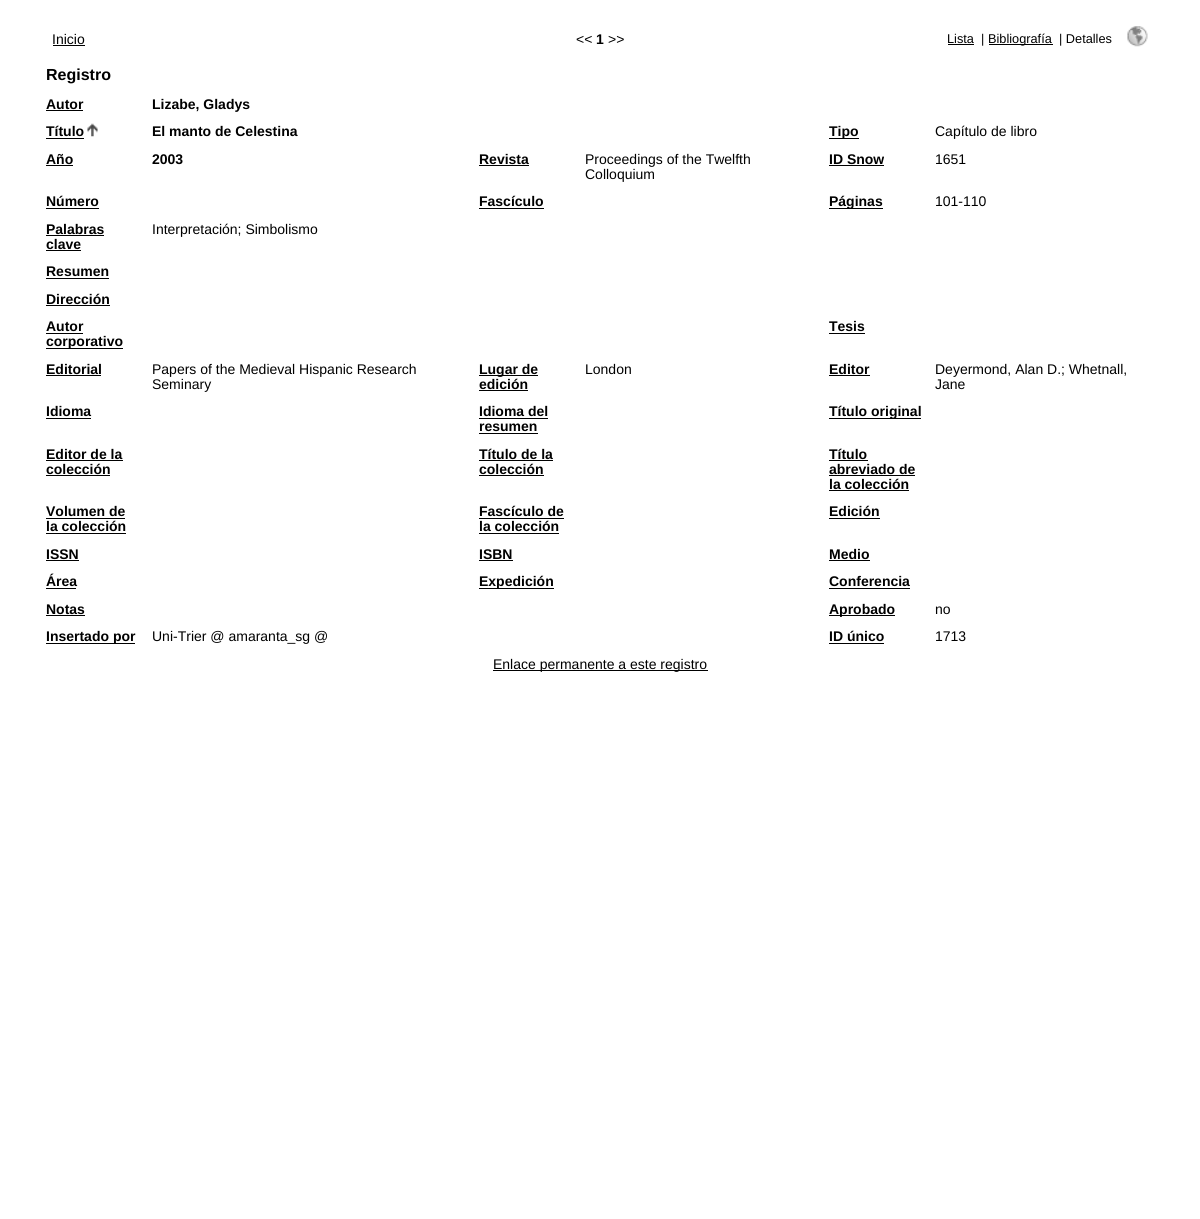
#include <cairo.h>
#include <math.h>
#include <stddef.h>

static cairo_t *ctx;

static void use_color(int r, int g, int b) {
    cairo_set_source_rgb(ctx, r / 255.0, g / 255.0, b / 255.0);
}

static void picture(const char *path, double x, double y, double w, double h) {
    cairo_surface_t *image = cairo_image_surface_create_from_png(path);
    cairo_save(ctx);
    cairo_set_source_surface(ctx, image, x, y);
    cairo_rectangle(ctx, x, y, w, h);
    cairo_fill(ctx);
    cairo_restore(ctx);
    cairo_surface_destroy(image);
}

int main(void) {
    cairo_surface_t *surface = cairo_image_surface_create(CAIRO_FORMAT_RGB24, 1200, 1219);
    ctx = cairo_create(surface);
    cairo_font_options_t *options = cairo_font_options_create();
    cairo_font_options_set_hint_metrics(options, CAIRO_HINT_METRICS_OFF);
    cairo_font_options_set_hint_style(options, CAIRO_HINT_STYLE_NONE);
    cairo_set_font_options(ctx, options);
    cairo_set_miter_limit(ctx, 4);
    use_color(255, 255, 255);
    cairo_paint(ctx);
    cairo_select_font_face(ctx, "Liberation Sans", CAIRO_FONT_SLANT_NORMAL, CAIRO_FONT_WEIGHT_NORMAL);
    cairo_set_font_size(ctx, 14);
    use_color(0, 0, 0);
    cairo_move_to(ctx, 52, 44);
    cairo_show_text(ctx, "Inicio");
    cairo_rectangle(ctx, 53, 45, 32, 1);
    cairo_fill(ctx);
    cairo_move_to(ctx, 576, 44);
    cairo_show_text(ctx, "<<");
    cairo_select_font_face(ctx, "Liberation Sans", CAIRO_FONT_SLANT_NORMAL, CAIRO_FONT_WEIGHT_BOLD);
    cairo_move_to(ctx, 596, 44);
    cairo_show_text(ctx, "1");
    cairo_select_font_face(ctx, "Liberation Sans", CAIRO_FONT_SLANT_NORMAL, CAIRO_FONT_WEIGHT_NORMAL);
    cairo_move_to(ctx, 608, 44);
    cairo_show_text(ctx, ">>");
    cairo_set_font_size(ctx, 12.75);
    cairo_move_to(ctx, 947, 43);
    cairo_show_text(ctx, "Lista");
    cairo_rectangle(ctx, 948, 44, 26, 1);
    cairo_fill(ctx);
    cairo_move_to(ctx, 981, 43);
    cairo_show_text(ctx, "|");
    cairo_rectangle(ctx, 989, 44, 64, 1);
    cairo_fill(ctx);
    cairo_move_to(ctx, 988, 43);
    cairo_show_text(ctx, "Bibliografía");
    cairo_move_to(ctx, 1059, 43);
    cairo_show_text(ctx, "| Detalles");
    picture("img1.png", 1127, 26, 21, 21);
    cairo_select_font_face(ctx, "Liberation Sans", CAIRO_FONT_SLANT_NORMAL, CAIRO_FONT_WEIGHT_BOLD);
    cairo_set_font_size(ctx, 16);
    cairo_move_to(ctx, 46, 80);
    cairo_show_text(ctx, "Registro");
    cairo_set_font_size(ctx, 14);
    cairo_move_to(ctx, 46, 109);
    cairo_show_text(ctx, "Autor");
    cairo_rectangle(ctx, 46, 110, 37, 1);
    cairo_fill(ctx);
    cairo_move_to(ctx, 152, 109);
    cairo_show_text(ctx, "Lizabe, Gladys");
    cairo_move_to(ctx, 46, 136);
    cairo_show_text(ctx, "Título");
    cairo_rectangle(ctx, 46, 138, 38, 1);
    cairo_fill(ctx);
    picture("img2.png", 87, 123, 11, 14);
    cairo_move_to(ctx, 152, 136);
    cairo_show_text(ctx, "El manto de Celestina");
    cairo_rectangle(ctx, 829, 138, 30, 1);
    cairo_fill(ctx);
    cairo_move_to(ctx, 829, 136);
    cairo_show_text(ctx, "Tipo");
    cairo_select_font_face(ctx, "Liberation Sans", CAIRO_FONT_SLANT_NORMAL, CAIRO_FONT_WEIGHT_NORMAL);
    cairo_move_to(ctx, 935, 136);
    cairo_show_text(ctx, "Capítulo de libro");
    cairo_select_font_face(ctx, "Liberation Sans", CAIRO_FONT_SLANT_NORMAL, CAIRO_FONT_WEIGHT_BOLD);
    cairo_move_to(ctx, 46, 164);
    cairo_show_text(ctx, "Año");
    cairo_rectangle(ctx, 46, 165, 27, 1);
    cairo_fill(ctx);
    cairo_move_to(ctx, 152, 164);
    cairo_show_text(ctx, "2003");
    cairo_move_to(ctx, 479, 164);
    cairo_show_text(ctx, "Revista");
    cairo_rectangle(ctx, 479, 165, 50, 1);
    cairo_fill(ctx);
    cairo_select_font_face(ctx, "Liberation Sans", CAIRO_FONT_SLANT_NORMAL, CAIRO_FONT_WEIGHT_NORMAL);
    cairo_move_to(ctx, 585, 164);
    cairo_show_text(ctx, "Proceedings of the Twelfth");
    cairo_move_to(ctx, 585, 179);
    cairo_show_text(ctx, "Colloquium");
    cairo_select_font_face(ctx, "Liberation Sans", CAIRO_FONT_SLANT_NORMAL, CAIRO_FONT_WEIGHT_BOLD);
    cairo_move_to(ctx, 829, 164);
    cairo_show_text(ctx, "ID Snow");
    cairo_rectangle(ctx, 829, 165, 55, 1);
    cairo_fill(ctx);
    cairo_select_font_face(ctx, "Liberation Sans", CAIRO_FONT_SLANT_NORMAL, CAIRO_FONT_WEIGHT_NORMAL);
    cairo_move_to(ctx, 935, 164);
    cairo_show_text(ctx, "1651");
    cairo_select_font_face(ctx, "Liberation Sans", CAIRO_FONT_SLANT_NORMAL, CAIRO_FONT_WEIGHT_BOLD);
    cairo_move_to(ctx, 46, 206);
    cairo_show_text(ctx, "Número");
    cairo_rectangle(ctx, 46, 208, 53, 1);
    cairo_fill(ctx);
    cairo_move_to(ctx, 479, 206);
    cairo_show_text(ctx, "Fascículo");
    cairo_rectangle(ctx, 479, 208, 65, 1);
    cairo_fill(ctx);
    cairo_rectangle(ctx, 829, 208, 54, 1);
    cairo_fill(ctx);
    cairo_move_to(ctx, 829, 206);
    cairo_show_text(ctx, "Páginas");
    cairo_select_font_face(ctx, "Liberation Sans", CAIRO_FONT_SLANT_NORMAL, CAIRO_FONT_WEIGHT_NORMAL);
    cairo_move_to(ctx, 935, 206);
    cairo_show_text(ctx, "101-110");
    cairo_select_font_face(ctx, "Liberation Sans", CAIRO_FONT_SLANT_NORMAL, CAIRO_FONT_WEIGHT_BOLD);
    cairo_move_to(ctx, 46, 234);
    cairo_show_text(ctx, "Palabras");
    cairo_rectangle(ctx, 46, 235, 58, 1);
    cairo_fill(ctx);
    cairo_move_to(ctx, 46, 249);
    cairo_show_text(ctx, "clave");
    cairo_rectangle(ctx, 46, 250, 35, 1);
    cairo_fill(ctx);
    cairo_select_font_face(ctx, "Liberation Sans", CAIRO_FONT_SLANT_NORMAL, CAIRO_FONT_WEIGHT_NORMAL);
    cairo_move_to(ctx, 152, 234);
    cairo_show_text(ctx, "Interpretación; Simbolismo");
    cairo_select_font_face(ctx, "Liberation Sans", CAIRO_FONT_SLANT_NORMAL, CAIRO_FONT_WEIGHT_BOLD);
    cairo_move_to(ctx, 46, 276);
    cairo_show_text(ctx, "Resumen");
    cairo_rectangle(ctx, 46, 278, 63, 1);
    cairo_fill(ctx);
    cairo_move_to(ctx, 46, 304);
    cairo_show_text(ctx, "Dirección");
    cairo_rectangle(ctx, 46, 305, 64, 1);
    cairo_fill(ctx);
    cairo_move_to(ctx, 46, 331);
    cairo_show_text(ctx, "Autor");
    cairo_rectangle(ctx, 46, 333, 37, 1);
    cairo_fill(ctx);
    cairo_rectangle(ctx, 46, 348, 77, 1);
    cairo_fill(ctx);
    cairo_move_to(ctx, 46, 346);
    cairo_show_text(ctx, "corporativo");
    cairo_move_to(ctx, 829, 331);
    cairo_show_text(ctx, "Tesis");
    cairo_rectangle(ctx, 829, 333, 36, 1);
    cairo_fill(ctx);
    cairo_move_to(ctx, 46, 374);
    cairo_show_text(ctx, "Editorial");
    cairo_rectangle(ctx, 46, 375, 55, 1);
    cairo_fill(ctx);
    cairo_select_font_face(ctx, "Liberation Sans", CAIRO_FONT_SLANT_NORMAL, CAIRO_FONT_WEIGHT_NORMAL);
    cairo_move_to(ctx, 152, 374);
    cairo_show_text(ctx, "Papers of the Medieval Hispanic Research");
    cairo_move_to(ctx, 152, 389);
    cairo_show_text(ctx, "Seminary");
    cairo_rectangle(ctx, 479, 375, 59, 1);
    cairo_fill(ctx);
    cairo_select_font_face(ctx, "Liberation Sans", CAIRO_FONT_SLANT_NORMAL, CAIRO_FONT_WEIGHT_BOLD);
    cairo_move_to(ctx, 479, 374);
    cairo_show_text(ctx, "Lugar de");
    cairo_move_to(ctx, 479, 389);
    cairo_show_text(ctx, "edición");
    cairo_rectangle(ctx, 479, 390, 49, 1);
    cairo_fill(ctx);
    cairo_select_font_face(ctx, "Liberation Sans", CAIRO_FONT_SLANT_NORMAL, CAIRO_FONT_WEIGHT_NORMAL);
    cairo_move_to(ctx, 585, 374);
    cairo_show_text(ctx, "London");
    cairo_select_font_face(ctx, "Liberation Sans", CAIRO_FONT_SLANT_NORMAL, CAIRO_FONT_WEIGHT_BOLD);
    cairo_move_to(ctx, 829, 374);
    cairo_show_text(ctx, "Editor");
    cairo_rectangle(ctx, 829, 375, 41, 1);
    cairo_fill(ctx);
    cairo_select_font_face(ctx, "Liberation Sans", CAIRO_FONT_SLANT_NORMAL, CAIRO_FONT_WEIGHT_NORMAL);
    cairo_move_to(ctx, 935, 374);
    cairo_show_text(ctx, "Deyermond, Alan D.; Whetnall,");
    cairo_move_to(ctx, 935, 389);
    cairo_show_text(ctx, "Jane");
    cairo_select_font_face(ctx, "Liberation Sans", CAIRO_FONT_SLANT_NORMAL, CAIRO_FONT_WEIGHT_BOLD);
    cairo_move_to(ctx, 46, 416);
    cairo_show_text(ctx, "Idioma");
    cairo_rectangle(ctx, 46, 418, 45, 1);
    cairo_fill(ctx);
    cairo_move_to(ctx, 479, 416);
    cairo_show_text(ctx, "Idioma del");
    cairo_rectangle(ctx, 479, 418, 69, 1);
    cairo_fill(ctx);
    cairo_move_to(ctx, 479, 431);
    cairo_show_text(ctx, "resumen");
    cairo_rectangle(ctx, 479, 433, 59, 1);
    cairo_fill(ctx);
    cairo_rectangle(ctx, 829, 418, 92, 1);
    cairo_fill(ctx);
    cairo_move_to(ctx, 829, 416);
    cairo_show_text(ctx, "Título original");
    cairo_move_to(ctx, 46, 459);
    cairo_show_text(ctx, "Editor de la");
    cairo_rectangle(ctx, 46, 460, 77, 1);
    cairo_fill(ctx);
    cairo_move_to(ctx, 46, 474);
    cairo_show_text(ctx, "colección");
    cairo_rectangle(ctx, 46, 475, 64, 1);
    cairo_fill(ctx);
    cairo_move_to(ctx, 479, 459);
    cairo_show_text(ctx, "Título de la");
    cairo_rectangle(ctx, 479, 460, 74, 1);
    cairo_fill(ctx);
    cairo_move_to(ctx, 479, 474);
    cairo_show_text(ctx, "colección");
    cairo_rectangle(ctx, 479, 475, 65, 1);
    cairo_fill(ctx);
    cairo_move_to(ctx, 829, 459);
    cairo_show_text(ctx, "Título");
    cairo_rectangle(ctx, 829, 460, 39, 1);
    cairo_fill(ctx);
    cairo_move_to(ctx, 829, 474);
    cairo_show_text(ctx, "abreviado de");
    cairo_rectangle(ctx, 829, 475, 86, 1);
    cairo_fill(ctx);
    cairo_move_to(ctx, 829, 489);
    cairo_show_text(ctx, "la colección");
    cairo_rectangle(ctx, 829, 490, 80, 1);
    cairo_fill(ctx);
    cairo_move_to(ctx, 46, 516);
    cairo_show_text(ctx, "Volumen de");
    cairo_rectangle(ctx, 46, 518, 79, 1);
    cairo_fill(ctx);
    cairo_move_to(ctx, 46, 531);
    cairo_show_text(ctx, "la colección");
    cairo_rectangle(ctx, 46, 533, 80, 1);
    cairo_fill(ctx);
    cairo_move_to(ctx, 479, 516);
    cairo_show_text(ctx, "Fascículo de");
    cairo_rectangle(ctx, 479, 518, 85, 1);
    cairo_fill(ctx);
    cairo_move_to(ctx, 479, 531);
    cairo_show_text(ctx, "la colección");
    cairo_rectangle(ctx, 479, 533, 80, 1);
    cairo_fill(ctx);
    cairo_move_to(ctx, 829, 516);
    cairo_show_text(ctx, "Edición");
    cairo_rectangle(ctx, 829, 518, 51, 1);
    cairo_fill(ctx);
    cairo_move_to(ctx, 46, 559);
    cairo_show_text(ctx, "ISSN");
    cairo_rectangle(ctx, 46, 560, 33, 1);
    cairo_fill(ctx);
    cairo_move_to(ctx, 479, 559);
    cairo_show_text(ctx, "ISBN");
    cairo_rectangle(ctx, 479, 560, 34, 1);
    cairo_fill(ctx);
    cairo_move_to(ctx, 829, 559);
    cairo_show_text(ctx, "Medio");
    cairo_rectangle(ctx, 829, 560, 41, 1);
    cairo_fill(ctx);
    cairo_move_to(ctx, 46, 586);
    cairo_show_text(ctx, "Área");
    cairo_rectangle(ctx, 46, 588, 30, 1);
    cairo_fill(ctx);
    cairo_rectangle(ctx, 479, 588, 75, 1);
    cairo_fill(ctx);
    cairo_move_to(ctx, 479, 586);
    cairo_show_text(ctx, "Expedición");
    cairo_move_to(ctx, 829, 586);
    cairo_show_text(ctx, "Conferencia");
    cairo_rectangle(ctx, 829, 588, 81, 1);
    cairo_fill(ctx);
    cairo_move_to(ctx, 46, 614);
    cairo_show_text(ctx, "Notas");
    cairo_rectangle(ctx, 46, 615, 39, 1);
    cairo_fill(ctx);
    cairo_rectangle(ctx, 829, 615, 66, 1);
    cairo_fill(ctx);
    cairo_move_to(ctx, 829, 614);
    cairo_show_text(ctx, "Aprobado");
    cairo_select_font_face(ctx, "Liberation Sans", CAIRO_FONT_SLANT_NORMAL, CAIRO_FONT_WEIGHT_NORMAL);
    cairo_move_to(ctx, 935, 614);
    cairo_show_text(ctx, "no");
    cairo_rectangle(ctx, 46, 643, 89, 1);
    cairo_fill(ctx);
    cairo_select_font_face(ctx, "Liberation Sans", CAIRO_FONT_SLANT_NORMAL, CAIRO_FONT_WEIGHT_BOLD);
    cairo_move_to(ctx, 46, 641);
    cairo_show_text(ctx, "Insertado por");
    cairo_select_font_face(ctx, "Liberation Sans", CAIRO_FONT_SLANT_NORMAL, CAIRO_FONT_WEIGHT_NORMAL);
    cairo_move_to(ctx, 152, 641);
    cairo_show_text(ctx, "Uni-Trier @ amaranta_sg @");
    cairo_select_font_face(ctx, "Liberation Sans", CAIRO_FONT_SLANT_NORMAL, CAIRO_FONT_WEIGHT_BOLD);
    cairo_move_to(ctx, 829, 641);
    cairo_show_text(ctx, "ID único");
    cairo_rectangle(ctx, 829, 643, 55, 1);
    cairo_fill(ctx);
    cairo_select_font_face(ctx, "Liberation Sans", CAIRO_FONT_SLANT_NORMAL, CAIRO_FONT_WEIGHT_NORMAL);
    cairo_move_to(ctx, 935, 641);
    cairo_show_text(ctx, "1713");
    cairo_rectangle(ctx, 493, 670, 215, 1);
    cairo_fill(ctx);
    cairo_move_to(ctx, 493, 669);
    cairo_show_text(ctx, "Enlace permanente a este registro");
    cairo_surface_write_to_png(surface, "result.png");
    cairo_font_options_destroy(options);
    cairo_destroy(ctx);
    cairo_surface_destroy(surface);
    return 0;
}
